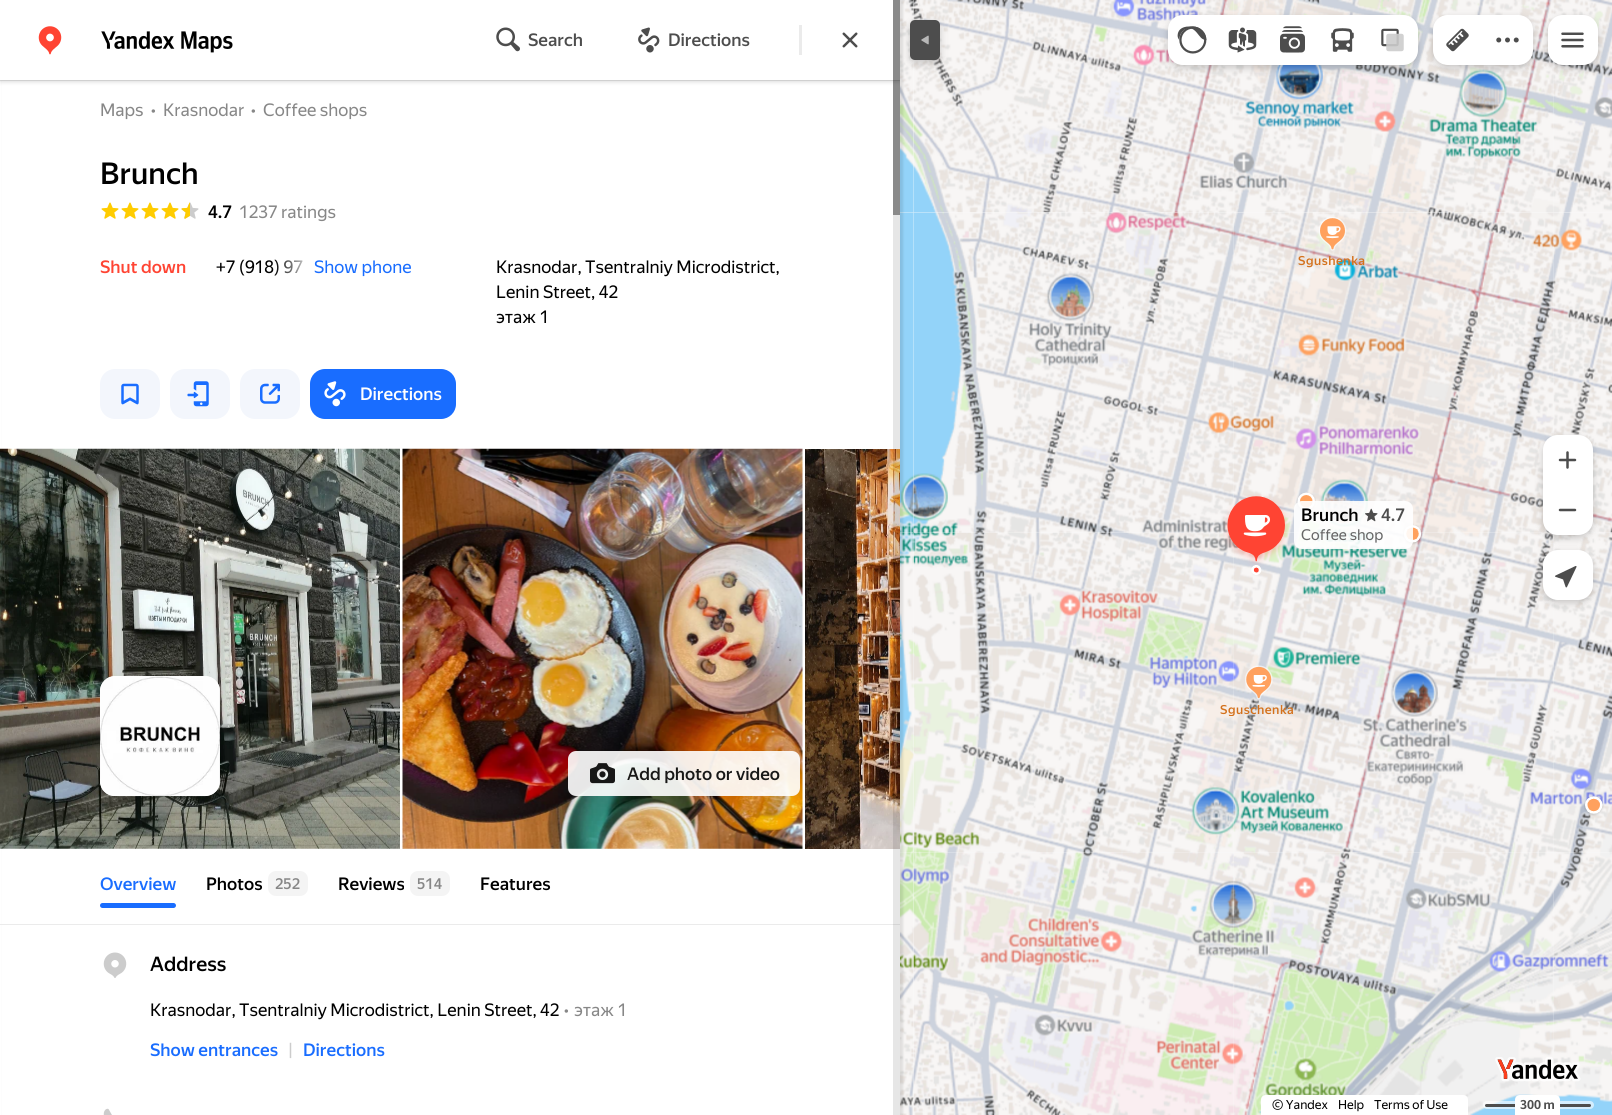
#include <cairo.h>
#include <math.h>
#include <stddef.h>

static cairo_t *ctx;

static void use_color(int r, int g, int b) {
    cairo_set_source_rgb(ctx, r / 255.0, g / 255.0, b / 255.0);
}

static void spaced_text(double x, double y, const char *s, double letter, double word) {
    cairo_move_to(ctx, x, y);
    while (*s) {
        char ch[5] = {0};
        int n = 0;
        do ch[n++] = *s++; while ((*s & 0xC0) == 0x80);
        cairo_show_text(ctx, ch);
        cairo_rel_move_to(ctx, letter + word * (*ch == ' '), 0);
    }
}

static void round_rect(double x, double y, double w, double h, double r) {
    cairo_new_sub_path(ctx);
    cairo_arc(ctx, x + w - r, y + h - r, r, 0, M_PI / 2);
    cairo_arc(ctx, x + r, y + h - r, r, M_PI / 2, M_PI);
    cairo_arc(ctx, x + r, y + r, r, M_PI, 1.5 * M_PI);
    cairo_arc(ctx, x + w - r, y + r, r, 1.5 * M_PI, 2 * M_PI);
    cairo_close_path(ctx);
}

static void shadow(double x, double y, double w, double h, double r, double blur, double alpha) {
    cairo_push_group_with_content(ctx, CAIRO_CONTENT_ALPHA);
    cairo_set_operator(ctx, CAIRO_OPERATOR_SOURCE);
    for (int i = 15; i >= -15 && fmin(w, h) + blur * i / 3 > 0; i -= 2) {
        double e = blur * i / 6;
        cairo_set_source_rgba(ctx, 0, 0, 0, alpha * erfc((i - 1) / 8.5) / 2);
        round_rect(x - e, y - e, w + 2 * e, h + 2 * e, fmax(0, fmin(r + e + blur * .6, fmin(w, h) / 2 + e)));
        cairo_fill(ctx);
    }
    cairo_pattern_t *soft = cairo_pop_group(ctx);
    cairo_mask(ctx, soft);
    cairo_pattern_destroy(soft);
}

static void picture(const char *path, double x, double y, double w, double h) {
    cairo_surface_t *image = cairo_image_surface_create_from_png(path);
    cairo_save(ctx);
    cairo_set_source_surface(ctx, image, x, y);
    cairo_rectangle(ctx, x, y, w, h);
    cairo_fill(ctx);
    cairo_restore(ctx);
    cairo_surface_destroy(image);
}

int main(void) {
    cairo_surface_t *surface = cairo_image_surface_create(CAIRO_FORMAT_RGB24, 1612, 1115);
    ctx = cairo_create(surface);
    cairo_font_options_t *options = cairo_font_options_create();
    cairo_font_options_set_hint_metrics(options, CAIRO_HINT_METRICS_OFF);
    cairo_font_options_set_hint_style(options, CAIRO_HINT_STYLE_NONE);
    cairo_set_font_options(ctx, options);
    cairo_set_miter_limit(ctx, 4);
    cairo_pattern_t *gradient;
    use_color(255, 255, 255);
    cairo_paint(ctx);
    picture("img1.png", 900, 0, 712, 1115);
    picture("img33.png", 900, 0, 14, 213);
    picture("img34.png", 913, 0, 321, 213);
    picture("img42.png", 913, 532, 321, 321);
    picture("img37.png", 900, 212, 14, 321);
    picture("img35.png", 1233, 0, 321, 213);
    picture("img43.png", 1233, 532, 321, 321);
    picture("img38.png", 913, 212, 321, 321);
    picture("img41.png", 900, 532, 14, 321);
    picture("img45.png", 900, 852, 14, 263);
    use_color(0, 0, 0);
    shadow(3, 0, 900, 1115, 0, 1, 0.1);
    use_color(255, 255, 255);
    cairo_rectangle(ctx, 2, 81, 898, 1034);
    cairo_fill(ctx);
    use_color(235, 235, 235);
    cairo_rectangle(ctx, 0, 80, 900, 1);
    cairo_fill(ctx);
    cairo_save(ctx);
    cairo_rectangle(ctx, 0, 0, 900, 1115);
    cairo_clip(ctx);
    use_color(0, 0, 0);
    shadow(0, 76, 900, 5, 0, 2.5, 0.2);
    cairo_restore(ctx);
    use_color(0, 0, 0);
    shadow(910, 23, 30, 40, 5, 4, 0.2);
    use_color(255, 255, 255);
    cairo_rectangle(ctx, 0, 0, 900, 80);
    cairo_fill(ctx);
    picture("img2.png", 38, 26, 24, 29);
    picture("img3.png", 101, 31, 132, 22);
    picture("img4.png", 496, 27, 24, 25);
    cairo_select_font_face(ctx, "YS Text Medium", CAIRO_FONT_SLANT_NORMAL, CAIRO_FONT_WEIGHT_NORMAL);
    cairo_set_font_size(ctx, 17.5);
    use_color(77, 77, 77);
    cairo_move_to(ctx, 528, 46);
    cairo_show_text(ctx, "Search");
    picture("img5.png", 638, 27, 22, 26);
    cairo_move_to(ctx, 668, 46);
    cairo_show_text(ctx, "Directions");
    use_color(235, 235, 235);
    cairo_rectangle(ctx, 799, 25, 3, 30);
    cairo_fill(ctx);
    picture("img6.png", 842, 32, 16, 16);
    cairo_select_font_face(ctx, "YS Text", CAIRO_FONT_SLANT_NORMAL, CAIRO_FONT_WEIGHT_NORMAL);
    use_color(135, 135, 135);
    cairo_move_to(ctx, 100, 116);
    cairo_show_text(ctx, "Maps");
    cairo_move_to(ctx, 151, 116);
    cairo_show_text(ctx, "•");
    cairo_move_to(ctx, 163, 116);
    cairo_show_text(ctx, "Krasnodar");
    cairo_move_to(ctx, 251, 116);
    cairo_show_text(ctx, "•");
    cairo_move_to(ctx, 263, 116);
    cairo_show_text(ctx, "Coffee shops");
    cairo_select_font_face(ctx, "YS Text Medium", CAIRO_FONT_SLANT_NORMAL, CAIRO_FONT_WEIGHT_NORMAL);
    cairo_set_font_size(ctx, 30);
    use_color(0, 0, 0);
    cairo_move_to(ctx, 100, 184);
    cairo_show_text(ctx, "Brunch");
    picture("img7.png", 101, 202, 18, 17);
    picture("img7.png", 121, 202, 18, 17);
    picture("img7.png", 141, 202, 18, 17);
    picture("img7.png", 161, 202, 18, 17);
    picture("img8.png", 181, 202, 18, 17);
    cairo_set_font_size(ctx, 17.5);
    cairo_move_to(ctx, 208, 218);
    cairo_show_text(ctx, "4.7");
    cairo_select_font_face(ctx, "YS Text", CAIRO_FONT_SLANT_NORMAL, CAIRO_FONT_WEIGHT_NORMAL);
    use_color(135, 135, 135);
    cairo_move_to(ctx, 239, 218);
    cairo_show_text(ctx, "1237 ratings");
    cairo_select_font_face(ctx, "YS Text Medium", CAIRO_FONT_SLANT_NORMAL, CAIRO_FONT_WEIGHT_NORMAL);
    use_color(255, 68, 51);
    cairo_move_to(ctx, 100, 273);
    cairo_show_text(ctx, "Shut down");
    cairo_select_font_face(ctx, "YS Text", CAIRO_FONT_SLANT_NORMAL, CAIRO_FONT_WEIGHT_NORMAL);
    use_color(0, 0, 0);
    cairo_move_to(ctx, 216, 273);
    cairo_show_text(ctx, "+7 (918) 97");
    gradient = cairo_pattern_create_linear(274, 266, 314, 266);
    cairo_pattern_add_color_stop_rgba(gradient, 0, 1, 1, 1, 0);
    cairo_pattern_add_color_stop_rgba(gradient, 1, 1, 1, 1, 1);
    cairo_set_source(ctx, gradient);
    cairo_pattern_destroy(gradient);
    cairo_rectangle(ctx, 275, 260, 27, 15);
    cairo_fill(ctx);
    use_color(25, 109, 255);
    cairo_move_to(ctx, 314, 273);
    cairo_show_text(ctx, "Show phone");
    use_color(0, 0, 0);
    cairo_move_to(ctx, 496, 273);
    cairo_show_text(ctx, "Krasnodar, Tsentralniy Microdistrict,");
    cairo_move_to(ctx, 496, 298);
    cairo_show_text(ctx, "Lenin Street, 42");
    cairo_move_to(ctx, 496, 323);
    cairo_show_text(ctx, "этаж 1");
    use_color(243, 246, 252);
    round_rect(100, 369, 60, 50, 15);
    cairo_fill(ctx);
    picture("img9.png", 121, 383, 18, 22);
    round_rect(170, 369, 60, 50, 15);
    cairo_fill(ctx);
    picture("img10.png", 187, 381, 22, 26);
    round_rect(240, 369, 60, 50, 15);
    cairo_fill(ctx);
    picture("img11.png", 260, 383, 20, 21);
    use_color(25, 109, 255);
    round_rect(310, 369, 146, 50, 15);
    cairo_fill(ctx);
    picture("img12.png", 324, 381, 22, 26);
    cairo_select_font_face(ctx, "YS Text Medium", CAIRO_FONT_SLANT_NORMAL, CAIRO_FONT_WEIGHT_NORMAL);
    use_color(255, 255, 255);
    cairo_move_to(ctx, 360, 400);
    cairo_show_text(ctx, "Directions");
    picture("img13.png", 0, 448, 400, 401);
    picture("img14.png", 402, 448, 401, 401);
    picture("img15.png", 805, 449, 95, 400);
    round_rect(100, 676, 120, 120, 15);
    cairo_fill(ctx);
    picture("img16.png", 100, 676, 120, 121);
    cairo_set_source_rgba(ctx, 1, 1, 1, 0.9);
    round_rect(568, 751, 232, 45, 8);
    cairo_fill(ctx);
    picture("img17.png", 590, 763, 25, 21);
    use_color(24, 24, 23);
    cairo_move_to(ctx, 627, 780);
    cairo_show_text(ctx, "Add photo or video");
    use_color(25, 109, 255);
    cairo_move_to(ctx, 100, 890);
    cairo_show_text(ctx, "Overview");
    use_color(0, 0, 0);
    cairo_move_to(ctx, 206, 890);
    cairo_show_text(ctx, "Photos");
    use_color(244, 244, 244);
    round_rect(268, 871, 40, 25, 8);
    cairo_fill(ctx);
    cairo_set_font_size(ctx, 15);
    use_color(135, 135, 135);
    cairo_move_to(ctx, 275, 889);
    cairo_show_text(ctx, "252");
    cairo_set_font_size(ctx, 17.5);
    use_color(0, 0, 0);
    cairo_move_to(ctx, 338, 890);
    cairo_show_text(ctx, "Reviews");
    use_color(244, 244, 244);
    round_rect(410, 871, 40, 25, 8);
    cairo_fill(ctx);
    cairo_set_font_size(ctx, 15);
    use_color(135, 135, 135);
    cairo_move_to(ctx, 417, 889);
    cairo_show_text(ctx, "514");
    cairo_set_font_size(ctx, 17.5);
    use_color(0, 0, 0);
    cairo_move_to(ctx, 480, 890);
    cairo_show_text(ctx, "Features");
    use_color(25, 109, 255);
    round_rect(100, 903, 76, 5, 2.5);
    cairo_fill(ctx);
    use_color(235, 235, 235);
    cairo_rectangle(ctx, 0, 924, 900, 1);
    cairo_fill(ctx);
    picture("img18.png", 103, 952, 24, 26);
    cairo_set_font_size(ctx, 20);
    use_color(0, 0, 0);
    cairo_move_to(ctx, 150, 971);
    cairo_show_text(ctx, "Address");
    cairo_select_font_face(ctx, "YS Text", CAIRO_FONT_SLANT_NORMAL, CAIRO_FONT_WEIGHT_NORMAL);
    cairo_set_font_size(ctx, 17.5);
    cairo_move_to(ctx, 150, 1016);
    cairo_show_text(ctx, "Krasnodar, Tsentralniy Microdistrict, Lenin Street, 42");
    use_color(135, 135, 135);
    cairo_move_to(ctx, 564, 1016);
    cairo_show_text(ctx, "•");
    cairo_move_to(ctx, 574, 1016);
    cairo_show_text(ctx, "этаж 1");
    cairo_select_font_face(ctx, "YS Text Medium", CAIRO_FONT_SLANT_NORMAL, CAIRO_FONT_WEIGHT_NORMAL);
    use_color(25, 109, 255);
    cairo_move_to(ctx, 150, 1056);
    cairo_show_text(ctx, "Show entrances");
    cairo_select_font_face(ctx, "YS Text", CAIRO_FONT_SLANT_NORMAL, CAIRO_FONT_WEIGHT_NORMAL);
    use_color(204, 204, 204);
    cairo_move_to(ctx, 288, 1056);
    cairo_show_text(ctx, "|");
    cairo_select_font_face(ctx, "YS Text Medium", CAIRO_FONT_SLANT_NORMAL, CAIRO_FONT_WEIGHT_NORMAL);
    use_color(25, 109, 255);
    cairo_move_to(ctx, 303, 1056);
    cairo_show_text(ctx, "Directions");
    picture("img19.png", 103, 1108, 9, 7);
    cairo_set_source_rgba(ctx, 0, 0, 0, 0.1);
    cairo_rectangle(ctx, 893, 0, 7, 1115);
    cairo_fill(ctx);
    cairo_set_source_rgba(ctx, 0, 0, 0, 0.4);
    cairo_rectangle(ctx, 893, 0, 7, 215);
    cairo_fill(ctx);
    use_color(77, 77, 77);
    round_rect(910, 20, 30, 40, 5);
    cairo_fill(ctx);
    picture("img20.png", 921, 35, 8, 10);
    use_color(0, 0, 0);
    shadow(1168, 18, 250, 50, 15, 4, 0.2);
    use_color(255, 255, 255);
    cairo_new_path(ctx);
    cairo_move_to(ctx, 1183, 15);
    cairo_line_to(ctx, 1218, 15);
    cairo_line_to(ctx, 1218, 65);
    cairo_line_to(ctx, 1183, 65);
    cairo_curve_to(ctx, 1174.5, 65, 1168, 58.5, 1168, 50);
    cairo_line_to(ctx, 1168, 30);
    cairo_curve_to(ctx, 1168, 21.5, 1174.5, 15, 1183, 15);
    cairo_close_path(ctx);
    cairo_fill(ctx);
    picture("img21.png", 1177, 26, 30, 28);
    cairo_rectangle(ctx, 1218, 15, 150, 50);
    cairo_fill(ctx);
    picture("img22.png", 1228, 27, 29, 26);
    cairo_new_path(ctx);
    cairo_move_to(ctx, 1368, 15);
    cairo_line_to(ctx, 1403, 15);
    cairo_curve_to(ctx, 1411.5, 15, 1418, 21.5, 1418, 30);
    cairo_line_to(ctx, 1418, 50);
    cairo_curve_to(ctx, 1418, 58.5, 1411.5, 65, 1403, 65);
    cairo_line_to(ctx, 1368, 65);
    cairo_close_path(ctx);
    cairo_fill(ctx);
    picture("img23.png", 1381, 28, 23, 24);
    picture("img24.png", 1280, 26, 25, 27);
    picture("img25.png", 1331, 28, 23, 24);
    use_color(0, 0, 0);
    shadow(1433, 18, 100, 50, 15, 4, 0.2);
    use_color(255, 255, 255);
    cairo_new_path(ctx);
    cairo_move_to(ctx, 1448, 15);
    cairo_line_to(ctx, 1483, 15);
    cairo_line_to(ctx, 1483, 65);
    cairo_line_to(ctx, 1448, 65);
    cairo_curve_to(ctx, 1439.5, 65, 1433, 58.5, 1433, 50);
    cairo_line_to(ctx, 1433, 30);
    cairo_curve_to(ctx, 1433, 21.5, 1439.5, 15, 1448, 15);
    cairo_close_path(ctx);
    cairo_fill(ctx);
    picture("img26.png", 1446, 28, 23, 24);
    cairo_new_path(ctx);
    cairo_move_to(ctx, 1483, 15);
    cairo_line_to(ctx, 1518, 15);
    cairo_curve_to(ctx, 1526.5, 15, 1533, 21.5, 1533, 30);
    cairo_line_to(ctx, 1533, 50);
    cairo_curve_to(ctx, 1533, 58.5, 1526.5, 65, 1518, 65);
    cairo_line_to(ctx, 1483, 65);
    cairo_close_path(ctx);
    cairo_fill(ctx);
    picture("img27.png", 1496, 37, 23, 6);
    picture("img36.png", 1553, 0, 59, 213);
    use_color(0, 0, 0);
    shadow(1548, 18, 50, 50, 15, 4, 0.2);
    use_color(255, 255, 255);
    round_rect(1548, 15, 50, 50, 15);
    cairo_fill(ctx);
    picture("img28.png", 1561, 32, 23, 16);
    picture("img39.png", 1233, 212, 321, 321);
    picture("img40.png", 1553, 212, 59, 321);
    picture("img44.png", 1553, 532, 59, 321);
    use_color(0, 0, 0);
    shadow(1543, 438, 50, 100, 15, 4, 0.2);
    use_color(255, 255, 255);
    cairo_new_path(ctx);
    cairo_move_to(ctx, 1558, 435);
    cairo_line_to(ctx, 1578, 435);
    cairo_curve_to(ctx, 1586.5, 435, 1593, 441.5, 1593, 450);
    cairo_line_to(ctx, 1593, 485);
    cairo_line_to(ctx, 1543, 485);
    cairo_line_to(ctx, 1543, 450);
    cairo_curve_to(ctx, 1543, 441.5, 1549.5, 435, 1558, 435);
    cairo_close_path(ctx);
    cairo_fill(ctx);
    picture("img29.png", 1558, 451, 19, 18);
    cairo_new_path(ctx);
    cairo_move_to(ctx, 1543, 485);
    cairo_line_to(ctx, 1593, 485);
    cairo_line_to(ctx, 1593, 520);
    cairo_curve_to(ctx, 1593, 528.5, 1586.5, 535, 1578, 535);
    cairo_line_to(ctx, 1558, 535);
    cairo_curve_to(ctx, 1549.5, 535, 1543, 528.5, 1543, 520);
    cairo_close_path(ctx);
    cairo_fill(ctx);
    picture("img30.png", 1558, 508, 19, 4);
    use_color(0, 0, 0);
    shadow(1543, 553, 50, 50, 15, 4, 0.2);
    use_color(255, 255, 255);
    round_rect(1543, 550, 50, 50, 15);
    cairo_fill(ctx);
    picture("img31.png", 1555, 566, 22, 22);
    picture("img46.png", 913, 852, 321, 263);
    picture("img47.png", 1233, 852, 321, 263);
    picture("img48.png", 1553, 852, 59, 263);
    picture("img32.png", 1495, 1057, 86, 25);
    cairo_new_path(ctx);
    cairo_move_to(ctx, 1266, 1095);
    cairo_line_to(ctx, 1463, 1095);
    cairo_curve_to(ctx, 1466, 1095, 1468, 1097, 1468, 1100);
    cairo_line_to(ctx, 1468, 1115);
    cairo_line_to(ctx, 1261, 1115);
    cairo_line_to(ctx, 1261, 1100);
    cairo_curve_to(ctx, 1261, 1097, 1263, 1095, 1266, 1095);
    cairo_close_path(ctx);
    cairo_fill(ctx);
    cairo_select_font_face(ctx, "YS Text", CAIRO_FONT_SLANT_NORMAL, CAIRO_FONT_WEIGHT_NORMAL);
    cairo_set_font_size(ctx, 12.5);
    use_color(0, 0, 0);
    cairo_move_to(ctx, 1272, 1109);
    cairo_show_text(ctx, "© Yandex");
    cairo_move_to(ctx, 1338, 1109);
    cairo_show_text(ctx, "Help");
    cairo_move_to(ctx, 1374, 1109);
    cairo_show_text(ctx, "Terms of Use");
    cairo_set_source_rgba(ctx, 1, 1, 1, 0.6);
    round_rect(1483, 1101, 111, 8, 4);
    cairo_fill(ctx);
    use_color(77, 77, 77);
    round_rect(1485, 1104, 106, 3, 1.5);
    cairo_fill(ctx);
    use_color(255, 255, 255);
    cairo_new_path(ctx);
    cairo_move_to(ctx, 1520, 1095);
    cairo_line_to(ctx, 1555, 1095);
    cairo_curve_to(ctx, 1558, 1095, 1560, 1097, 1560, 1100);
    cairo_line_to(ctx, 1560, 1115);
    cairo_line_to(ctx, 1515, 1115);
    cairo_line_to(ctx, 1515, 1100);
    cairo_curve_to(ctx, 1515, 1097, 1517, 1095, 1520, 1095);
    cairo_close_path(ctx);
    cairo_fill(ctx);
    cairo_select_font_face(ctx, "YS Text", CAIRO_FONT_SLANT_NORMAL, CAIRO_FONT_WEIGHT_BOLD);
    use_color(77, 77, 77);
    cairo_move_to(ctx, 1520, 1109);
    cairo_show_text(ctx, "300 m");
    picture("img49.png", 1319, 217, 28, 34);
    picture("img50.png", 1326, 226, 15, 13);
    cairo_select_font_face(ctx, "YS Text Medium", CAIRO_FONT_SLANT_NORMAL, CAIRO_FONT_WEIGHT_NORMAL);
    use_color(212, 113, 28);
    spaced_text(1298, 265, "Sgushenka", 0.5, 0);
    picture("img51.png", 1296, 492, 20, 20);
    picture("img52.png", 1223, 494, 67, 81);
    picture("img53.png", 1243, 515, 27, 22);
    picture("img55.png", 1403, 525, 19, 20);
    cairo_set_source_rgba(ctx, 1, 1, 1, 0.9);
    round_rect(1294, 501, 119, 48, 8);
    cairo_fill(ctx);
    cairo_set_font_size(ctx, 17.5);
    use_color(0, 0, 0);
    cairo_move_to(ctx, 1301, 521);
    cairo_show_text(ctx, "Brunch");
    picture("img54.png", 1365, 508, 13, 14);
    use_color(77, 77, 77);
    cairo_move_to(ctx, 1381, 521);
    cairo_show_text(ctx, "4.7");
    cairo_select_font_face(ctx, "YS Text", CAIRO_FONT_SLANT_NORMAL, CAIRO_FONT_WEIGHT_NORMAL);
    cairo_set_font_size(ctx, 15);
    use_color(102, 102, 102);
    cairo_move_to(ctx, 1301, 540);
    cairo_show_text(ctx, "Coffee shop");
    picture("img56.png", 1245, 665, 28, 35);
    picture("img57.png", 1252, 675, 15, 12);
    cairo_save(ctx);
    cairo_rectangle(ctx, 1220, 704, 78, 12);
    cairo_clip(ctx);
    cairo_select_font_face(ctx, "YS Text Medium", CAIRO_FONT_SLANT_NORMAL, CAIRO_FONT_WEIGHT_NORMAL);
    cairo_set_font_size(ctx, 12.5);
    use_color(212, 113, 28);
    spaced_text(1220, 714, "Sguschenka", 0.5, 0);
    cairo_restore(ctx);
    picture("img58.png", 1584, 796, 20, 20);
    cairo_surface_write_to_png(surface, "result.png");
    cairo_font_options_destroy(options);
    cairo_destroy(ctx);
    cairo_surface_destroy(surface);
    return 0;
}
